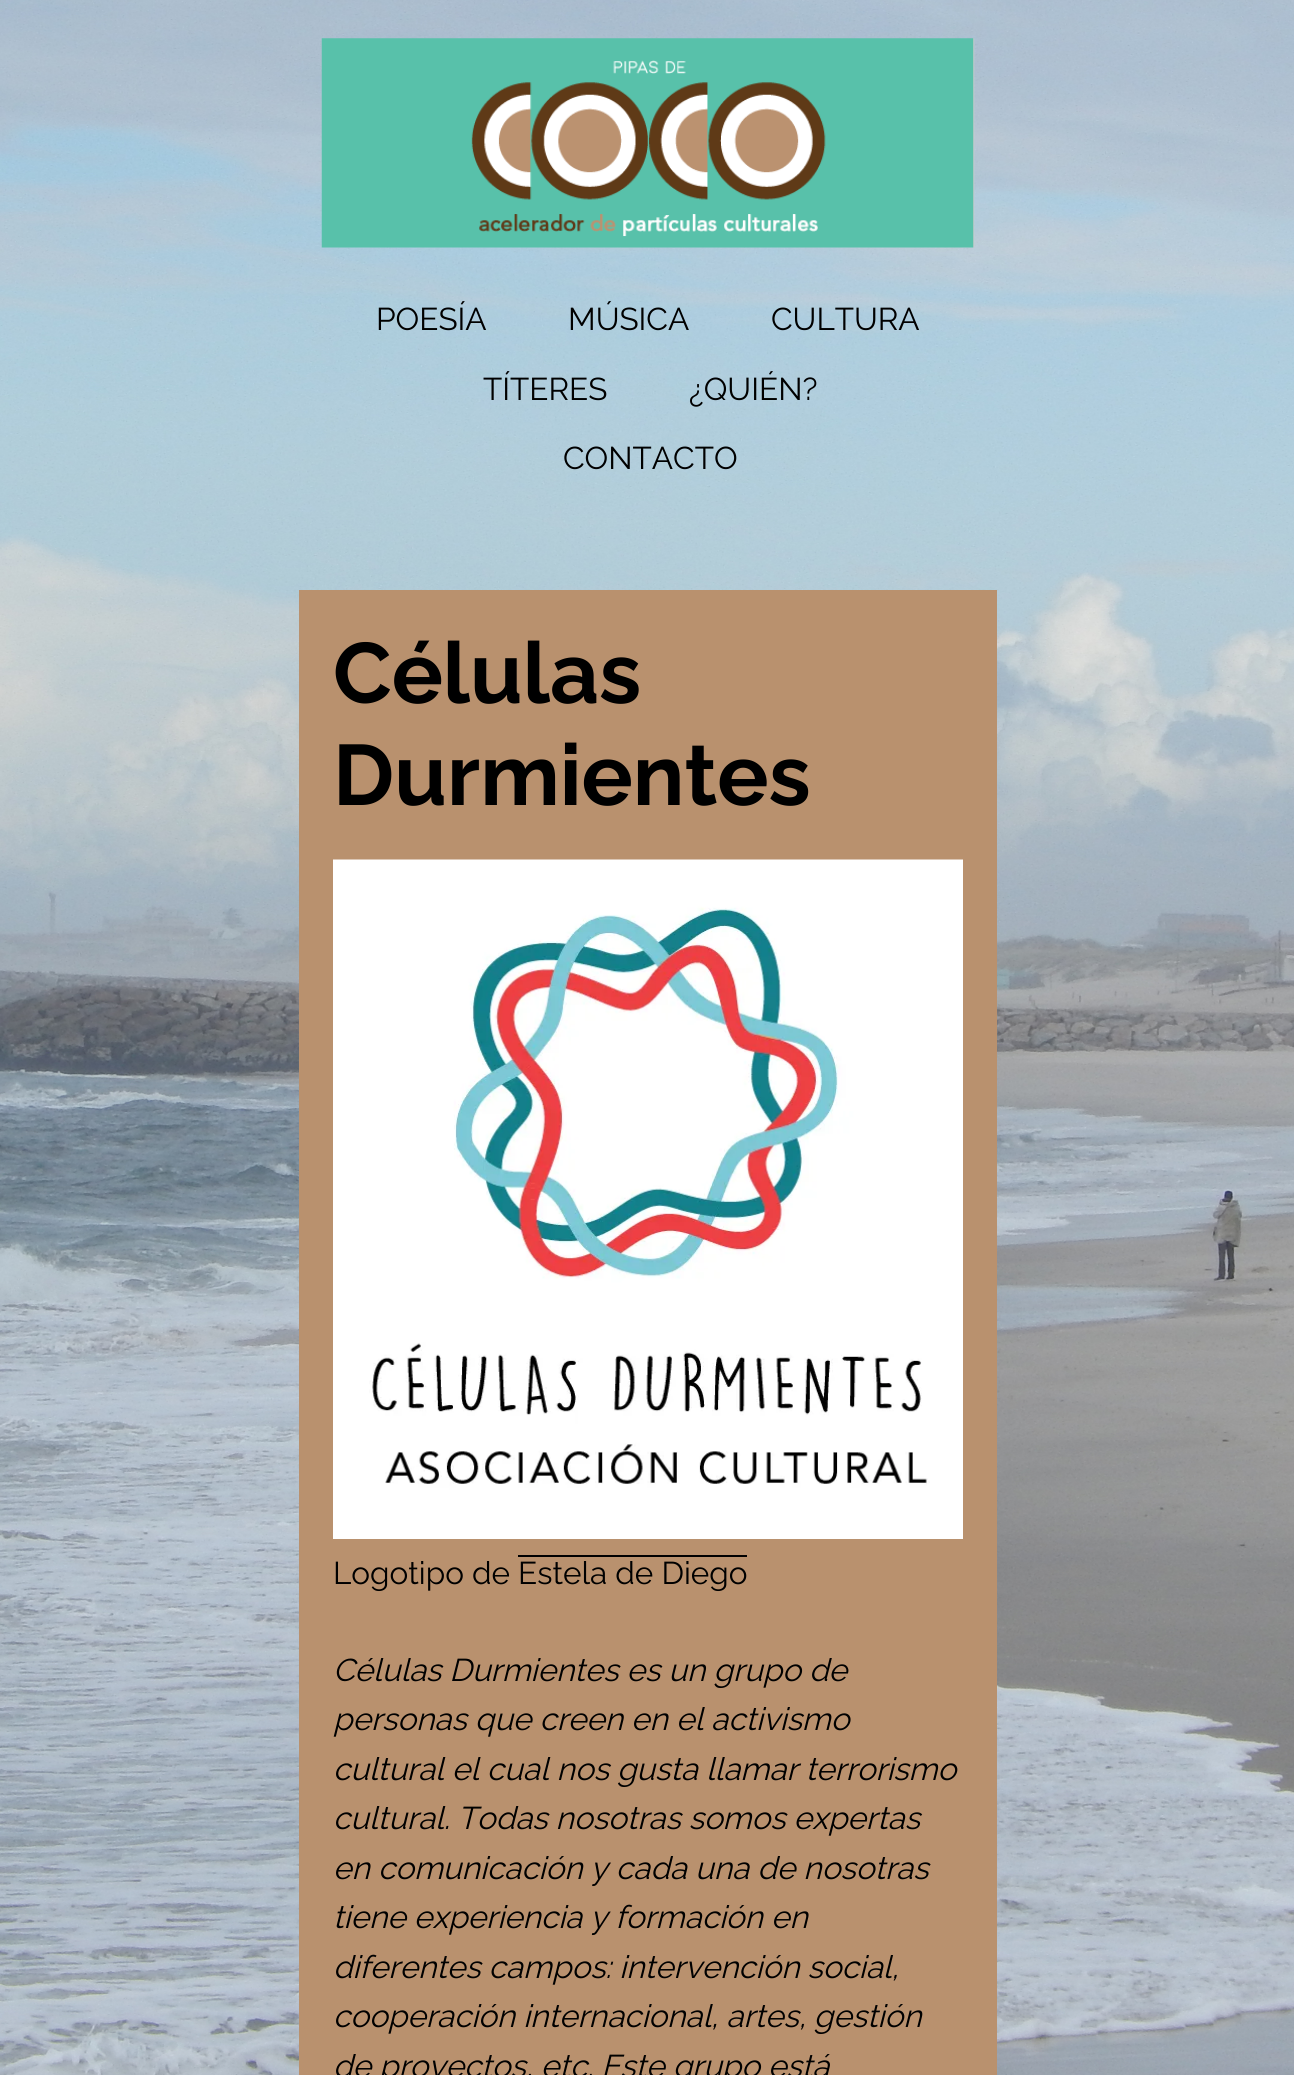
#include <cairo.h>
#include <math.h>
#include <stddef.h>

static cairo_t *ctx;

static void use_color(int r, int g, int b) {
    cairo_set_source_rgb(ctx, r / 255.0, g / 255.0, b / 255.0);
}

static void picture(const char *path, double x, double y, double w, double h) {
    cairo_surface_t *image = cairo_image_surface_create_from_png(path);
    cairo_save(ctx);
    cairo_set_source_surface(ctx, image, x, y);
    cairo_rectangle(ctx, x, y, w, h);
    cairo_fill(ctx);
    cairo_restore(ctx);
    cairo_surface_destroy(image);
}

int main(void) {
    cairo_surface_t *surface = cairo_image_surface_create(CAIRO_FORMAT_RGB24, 1294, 2075);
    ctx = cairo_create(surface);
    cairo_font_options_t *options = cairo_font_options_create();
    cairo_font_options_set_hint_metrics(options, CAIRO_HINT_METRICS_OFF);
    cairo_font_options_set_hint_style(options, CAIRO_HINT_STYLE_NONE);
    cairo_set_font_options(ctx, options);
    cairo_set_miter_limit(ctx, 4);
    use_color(255, 255, 255);
    cairo_paint(ctx);
    picture("img1.png", 0, 0, 1294, 2075);
    picture("img2.png", 321, 38, 654, 210);
    cairo_select_font_face(ctx, "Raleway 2 Thin", CAIRO_FONT_SLANT_NORMAL, CAIRO_FONT_WEIGHT_NORMAL);
    cairo_set_font_size(ctx, 31.5);
    use_color(0, 0, 0);
    cairo_move_to(ctx, 376, 330);
    cairo_show_text(ctx, "POESÍA");
    cairo_move_to(ctx, 568, 330);
    cairo_show_text(ctx, "MÚSICA");
    cairo_move_to(ctx, 771, 330);
    cairo_show_text(ctx, "CULTURA");
    cairo_move_to(ctx, 483, 400);
    cairo_show_text(ctx, "TÍTERES");
    cairo_move_to(ctx, 689, 400);
    cairo_show_text(ctx, "¿QUIÉN?");
    cairo_move_to(ctx, 563, 469);
    cairo_show_text(ctx, "CONTACTO");
    use_color(185, 145, 110);
    cairo_rectangle(ctx, 299, 590, 698, 1485);
    cairo_fill(ctx);
    cairo_select_font_face(ctx, "Raleway Thin", CAIRO_FONT_SLANT_NORMAL, CAIRO_FONT_WEIGHT_NORMAL);
    cairo_set_font_size(ctx, 85.5);
    use_color(0, 0, 0);
    cairo_move_to(ctx, 333, 703);
    cairo_show_text(ctx, "Células");
    cairo_move_to(ctx, 333, 805);
    cairo_show_text(ctx, "Durmientes");
    picture("img3.png", 333, 859, 630, 680);
    cairo_rectangle(ctx, 518, 1555, 229, 2);
    cairo_fill(ctx);
    cairo_select_font_face(ctx, "Raleway 2 Thin", CAIRO_FONT_SLANT_NORMAL, CAIRO_FONT_WEIGHT_NORMAL);
    cairo_set_font_size(ctx, 31.5);
    cairo_move_to(ctx, 333, 1584);
    cairo_show_text(ctx, "Logotipo de Estela de Diego");
    cairo_select_font_face(ctx, "Raleway Thin", CAIRO_FONT_SLANT_ITALIC, CAIRO_FONT_WEIGHT_NORMAL);
    cairo_move_to(ctx, 333, 1681);
    cairo_show_text(ctx, "Células Durmientes es un grupo de");
    cairo_move_to(ctx, 333, 1730);
    cairo_show_text(ctx, "personas que creen en el activismo");
    cairo_move_to(ctx, 333, 1780);
    cairo_show_text(ctx, "cultural el cual nos gusta llamar terrorismo");
    cairo_move_to(ctx, 333, 1829);
    cairo_show_text(ctx, "cultural. Todas nosotras somos expertas");
    cairo_move_to(ctx, 333, 1879);
    cairo_show_text(ctx, "en comunicación y cada una de nosotras");
    cairo_move_to(ctx, 333, 1928);
    cairo_show_text(ctx, "tiene experiencia y formación en");
    cairo_move_to(ctx, 333, 1978);
    cairo_show_text(ctx, "diferentes campos: intervención social,");
    cairo_move_to(ctx, 333, 2027);
    cairo_show_text(ctx, "cooperación internacional, artes, gestión");
    cairo_move_to(ctx, 333, 2077);
    cairo_show_text(ctx, "de proyectos, etc. Este grupo está");
    cairo_surface_write_to_png(surface, "result.png");
    cairo_font_options_destroy(options);
    cairo_destroy(ctx);
    cairo_surface_destroy(surface);
    return 0;
}
